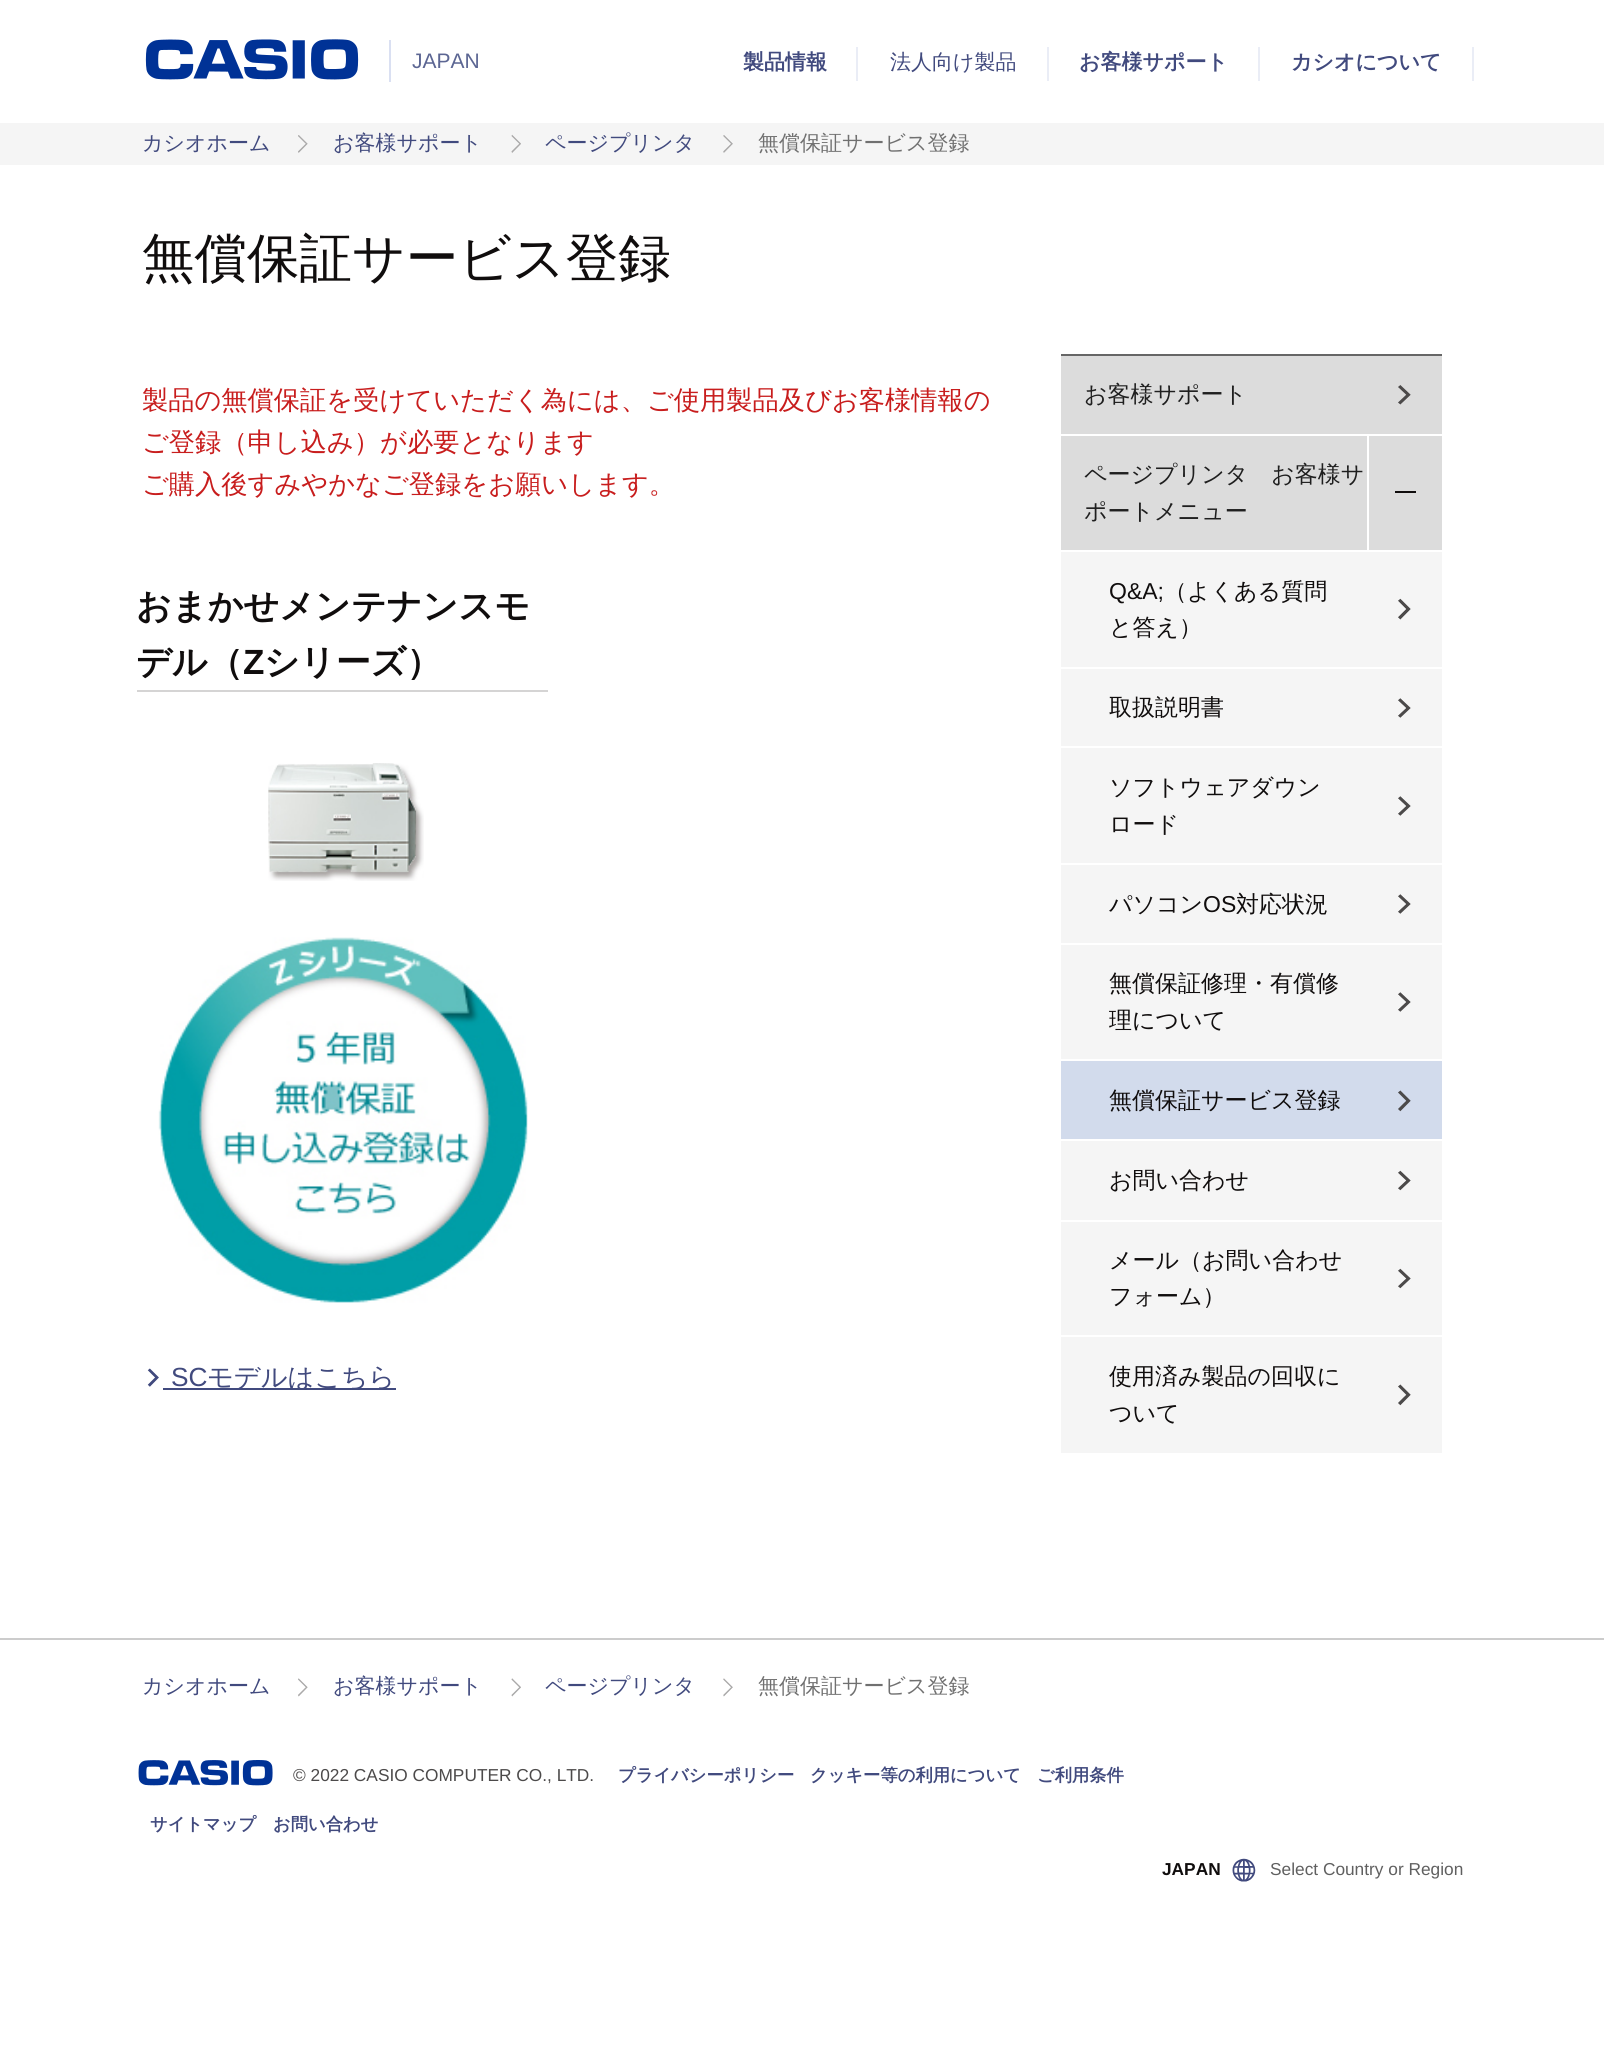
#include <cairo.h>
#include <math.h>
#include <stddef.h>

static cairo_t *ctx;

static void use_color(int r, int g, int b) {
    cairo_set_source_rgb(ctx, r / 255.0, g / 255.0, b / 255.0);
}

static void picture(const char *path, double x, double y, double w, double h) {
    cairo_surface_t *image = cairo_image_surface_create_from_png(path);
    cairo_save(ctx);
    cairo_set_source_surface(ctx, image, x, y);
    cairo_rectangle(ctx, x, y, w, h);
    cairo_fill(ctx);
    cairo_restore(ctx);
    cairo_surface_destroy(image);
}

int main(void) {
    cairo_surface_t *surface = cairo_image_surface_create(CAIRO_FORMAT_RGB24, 1604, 2068);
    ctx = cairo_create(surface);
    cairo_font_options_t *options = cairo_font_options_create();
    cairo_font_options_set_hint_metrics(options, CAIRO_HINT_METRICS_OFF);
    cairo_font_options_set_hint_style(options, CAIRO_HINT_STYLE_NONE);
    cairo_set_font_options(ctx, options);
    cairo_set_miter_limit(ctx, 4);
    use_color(255, 255, 255);
    cairo_paint(ctx);
    picture("img1.png", 145, 39, 214, 41);
    use_color(218, 224, 242);
    cairo_rectangle(ctx, 389, 40, 2, 42);
    cairo_fill(ctx);
    cairo_select_font_face(ctx, "Liberation Sans", CAIRO_FONT_SLANT_NORMAL, CAIRO_FONT_WEIGHT_NORMAL);
    cairo_set_font_size(ctx, 21);
    use_color(92, 102, 147);
    cairo_move_to(ctx, 412, 68);
    cairo_show_text(ctx, "JAPAN");
    cairo_select_font_face(ctx, "WenQuanYi Zen Hei", CAIRO_FONT_SLANT_NORMAL, CAIRO_FONT_WEIGHT_BOLD);
    use_color(65, 74, 126);
    cairo_move_to(ctx, 743, 69);
    cairo_show_text(ctx, "製品情報");
    use_color(234, 237, 246);
    cairo_rectangle(ctx, 856, 47, 2, 34);
    cairo_fill(ctx);
    cairo_select_font_face(ctx, "WenQuanYi Zen Hei Medium", CAIRO_FONT_SLANT_NORMAL, CAIRO_FONT_WEIGHT_NORMAL);
    use_color(65, 74, 126);
    cairo_move_to(ctx, 890, 69);
    cairo_show_text(ctx, "法人向け製品");
    use_color(234, 237, 246);
    cairo_rectangle(ctx, 1047, 47, 2, 34);
    cairo_fill(ctx);
    cairo_select_font_face(ctx, "WenQuanYi Zen Hei", CAIRO_FONT_SLANT_NORMAL, CAIRO_FONT_WEIGHT_BOLD);
    use_color(65, 74, 126);
    cairo_move_to(ctx, 1079, 69);
    cairo_show_text(ctx, "お客様サポート");
    use_color(234, 237, 246);
    cairo_rectangle(ctx, 1258, 47, 2, 34);
    cairo_fill(ctx);
    use_color(65, 74, 126);
    cairo_move_to(ctx, 1291, 69);
    cairo_show_text(ctx, "カシオについて");
    use_color(234, 237, 246);
    cairo_rectangle(ctx, 1472, 47, 2, 34);
    cairo_fill(ctx);
    use_color(245, 245, 245);
    cairo_rectangle(ctx, 0, 123, 1604, 42);
    cairo_fill(ctx);
    cairo_select_font_face(ctx, "WenQuanYi Zen Hei Medium", CAIRO_FONT_SLANT_NORMAL, CAIRO_FONT_WEIGHT_NORMAL);
    use_color(65, 74, 126);
    cairo_move_to(ctx, 142, 150);
    cairo_show_text(ctx, "カシオホーム");
    picture("img2.png", 298, 135, 10, 18);
    cairo_move_to(ctx, 333, 150);
    cairo_show_text(ctx, "お客様サポート");
    picture("img3.png", 511, 134, 10, 19);
    cairo_move_to(ctx, 545, 150);
    cairo_show_text(ctx, "ページプリンタ");
    picture("img4.png", 723, 135, 10, 18);
    use_color(112, 112, 112);
    cairo_move_to(ctx, 758, 150);
    cairo_show_text(ctx, "無償保証サービス登録");
    cairo_set_font_size(ctx, 52.5);
    use_color(16, 13, 13);
    cairo_move_to(ctx, 142, 276);
    cairo_show_text(ctx, "無償保証サービス登録");
    cairo_set_font_size(ctx, 26.25);
    use_color(200, 29, 29);
    cairo_move_to(ctx, 142, 409);
    cairo_show_text(ctx, "製品の無償保証を受けていただく為には、ご使用製品及びお客様情報の");
    cairo_move_to(ctx, 142, 451);
    cairo_show_text(ctx, "ご登録（申し込み）が必要となります");
    cairo_move_to(ctx, 142, 493);
    cairo_show_text(ctx, "ご購入後すみやかなご登録をお願いします。");
    cairo_select_font_face(ctx, "WenQuanYi Zen Hei", CAIRO_FONT_SLANT_NORMAL, CAIRO_FONT_WEIGHT_BOLD);
    cairo_set_font_size(ctx, 35);
    use_color(16, 13, 13);
    cairo_move_to(ctx, 136, 618);
    cairo_show_text(ctx, "おまかせメンテナンスモ");
    cairo_move_to(ctx, 136, 674);
    cairo_show_text(ctx, "デル（");
    cairo_select_font_face(ctx, "Liberation Sans", CAIRO_FONT_SLANT_NORMAL, CAIRO_FONT_WEIGHT_BOLD);
    cairo_move_to(ctx, 243, 674);
    cairo_show_text(ctx, "Z");
    cairo_select_font_face(ctx, "WenQuanYi Zen Hei", CAIRO_FONT_SLANT_NORMAL, CAIRO_FONT_WEIGHT_BOLD);
    cairo_move_to(ctx, 264, 674);
    cairo_show_text(ctx, "シリーズ）");
    use_color(213, 212, 212);
    cairo_rectangle(ctx, 137, 690, 411, 2);
    cairo_fill(ctx);
    picture("img5.png", 268, 763, 156, 118);
    picture("img6.png", 158, 937, 370, 366);
    picture("img7.png", 147, 1368, 12, 19);
    cairo_select_font_face(ctx, "Liberation Sans", CAIRO_FONT_SLANT_NORMAL, CAIRO_FONT_WEIGHT_NORMAL);
    cairo_set_font_size(ctx, 26.25);
    use_color(65, 74, 126);
    cairo_move_to(ctx, 171, 1386);
    cairo_show_text(ctx, "SC");
    cairo_rectangle(ctx, 163, 1388, 233, 2);
    cairo_fill(ctx);
    cairo_select_font_face(ctx, "WenQuanYi Zen Hei Medium", CAIRO_FONT_SLANT_NORMAL, CAIRO_FONT_WEIGHT_NORMAL);
    cairo_move_to(ctx, 207, 1386);
    cairo_show_text(ctx, "モデルはこちら");
    use_color(220, 220, 220);
    cairo_rectangle(ctx, 1061, 356, 381, 194);
    cairo_fill(ctx);
    use_color(102, 102, 102);
    cairo_rectangle(ctx, 1061, 354, 381, 2);
    cairo_fill(ctx);
    use_color(255, 255, 255);
    cairo_rectangle(ctx, 1061, 434, 381, 2);
    cairo_fill(ctx);
    cairo_set_font_size(ctx, 23);
    use_color(31, 31, 31);
    cairo_move_to(ctx, 1084, 402);
    cairo_show_text(ctx, "お客様サポート");
    picture("img8.png", 1398, 385, 13, 20);
    cairo_move_to(ctx, 1084, 482);
    cairo_show_text(ctx, "ページプリンタ　お客様サ");
    cairo_move_to(ctx, 1084, 519);
    cairo_show_text(ctx, "ポートメニュー");
    use_color(255, 255, 255);
    cairo_rectangle(ctx, 1367, 436, 2, 114);
    cairo_fill(ctx);
    use_color(16, 13, 13);
    cairo_rectangle(ctx, 1395, 491, 21, 2);
    cairo_fill(ctx);
    use_color(245, 245, 245);
    cairo_rectangle(ctx, 1061, 552, 381, 901);
    cairo_fill(ctx);
    cairo_select_font_face(ctx, "Liberation Sans", CAIRO_FONT_SLANT_NORMAL, CAIRO_FONT_WEIGHT_NORMAL);
    use_color(16, 13, 13);
    cairo_move_to(ctx, 1109, 599);
    cairo_show_text(ctx, "Q&A;");
    cairo_select_font_face(ctx, "WenQuanYi Zen Hei Medium", CAIRO_FONT_SLANT_NORMAL, CAIRO_FONT_WEIGHT_NORMAL);
    cairo_move_to(ctx, 1164, 599);
    cairo_show_text(ctx, "（よくある質問");
    picture("img9.png", 1398, 598, 13, 22);
    cairo_move_to(ctx, 1109, 635);
    cairo_show_text(ctx, "と答え）");
    use_color(255, 255, 255);
    cairo_rectangle(ctx, 1061, 667, 381, 2);
    cairo_fill(ctx);
    use_color(16, 13, 13);
    cairo_move_to(ctx, 1109, 715);
    cairo_show_text(ctx, "取扱説明書");
    picture("img10.png", 1398, 698, 13, 20);
    use_color(255, 255, 255);
    cairo_rectangle(ctx, 1061, 746, 381, 2);
    cairo_fill(ctx);
    use_color(16, 13, 13);
    cairo_move_to(ctx, 1109, 795);
    cairo_show_text(ctx, "ソフトウェアダウン");
    picture("img10.png", 1398, 796, 13, 20);
    cairo_move_to(ctx, 1109, 832);
    cairo_show_text(ctx, "ロード");
    use_color(255, 255, 255);
    cairo_rectangle(ctx, 1061, 863, 381, 2);
    cairo_fill(ctx);
    use_color(16, 13, 13);
    cairo_move_to(ctx, 1109, 912);
    cairo_show_text(ctx, "パソコン");
    cairo_select_font_face(ctx, "Liberation Sans", CAIRO_FONT_SLANT_NORMAL, CAIRO_FONT_WEIGHT_NORMAL);
    cairo_move_to(ctx, 1203, 912);
    cairo_show_text(ctx, "OS");
    cairo_select_font_face(ctx, "WenQuanYi Zen Hei Medium", CAIRO_FONT_SLANT_NORMAL, CAIRO_FONT_WEIGHT_NORMAL);
    cairo_move_to(ctx, 1236, 912);
    cairo_show_text(ctx, "対応状況");
    picture("img10.png", 1398, 894, 13, 20);
    use_color(255, 255, 255);
    cairo_rectangle(ctx, 1061, 943, 381, 2);
    cairo_fill(ctx);
    use_color(16, 13, 13);
    cairo_move_to(ctx, 1109, 991);
    cairo_show_text(ctx, "無償保証修理・有償修");
    picture("img10.png", 1398, 992, 13, 20);
    cairo_move_to(ctx, 1109, 1028);
    cairo_show_text(ctx, "理について");
    use_color(255, 255, 255);
    cairo_rectangle(ctx, 1061, 1059, 381, 2);
    cairo_fill(ctx);
    use_color(210, 219, 236);
    cairo_rectangle(ctx, 1061, 1061, 381, 78);
    cairo_fill(ctx);
    use_color(16, 13, 13);
    cairo_move_to(ctx, 1109, 1108);
    cairo_show_text(ctx, "無償保証サービス登録");
    picture("img11.png", 1398, 1090, 13, 22);
    use_color(255, 255, 255);
    cairo_rectangle(ctx, 1061, 1139, 381, 2);
    cairo_fill(ctx);
    use_color(16, 13, 13);
    cairo_move_to(ctx, 1109, 1188);
    cairo_show_text(ctx, "お問い合わせ");
    picture("img12.png", 1398, 1170, 13, 21);
    use_color(255, 255, 255);
    cairo_rectangle(ctx, 1061, 1220, 381, 2);
    cairo_fill(ctx);
    use_color(16, 13, 13);
    cairo_move_to(ctx, 1109, 1268);
    cairo_show_text(ctx, "メール（お問い合わせ");
    picture("img13.png", 1398, 1268, 13, 21);
    cairo_move_to(ctx, 1109, 1304);
    cairo_show_text(ctx, "フォーム）");
    use_color(255, 255, 255);
    cairo_rectangle(ctx, 1061, 1335, 381, 2);
    cairo_fill(ctx);
    use_color(16, 13, 13);
    cairo_move_to(ctx, 1109, 1384);
    cairo_show_text(ctx, "使用済み製品の回収に");
    picture("img14.png", 1398, 1384, 13, 22);
    cairo_move_to(ctx, 1109, 1421);
    cairo_show_text(ctx, "ついて");
    use_color(204, 204, 204);
    cairo_rectangle(ctx, 0, 1638, 1604, 2);
    cairo_fill(ctx);
    cairo_set_font_size(ctx, 21);
    use_color(65, 74, 126);
    cairo_move_to(ctx, 142, 1693);
    cairo_show_text(ctx, "カシオホーム");
    picture("img15.png", 298, 1678, 10, 19);
    cairo_move_to(ctx, 333, 1693);
    cairo_show_text(ctx, "お客様サポート");
    picture("img16.png", 511, 1678, 10, 19);
    cairo_move_to(ctx, 545, 1693);
    cairo_show_text(ctx, "ページプリンタ");
    picture("img17.png", 723, 1678, 10, 19);
    use_color(112, 112, 112);
    cairo_move_to(ctx, 758, 1693);
    cairo_show_text(ctx, "無償保証サービス登録");
    picture("img18.png", 138, 1760, 135, 26);
    cairo_select_font_face(ctx, "Liberation Sans", CAIRO_FONT_SLANT_NORMAL, CAIRO_FONT_WEIGHT_NORMAL);
    cairo_set_font_size(ctx, 17.3);
    use_color(76, 74, 74);
    cairo_move_to(ctx, 293, 1781);
    cairo_show_text(ctx, "© 2022 CASIO COMPUTER CO., LTD.");
    cairo_select_font_face(ctx, "WenQuanYi Zen Hei", CAIRO_FONT_SLANT_NORMAL, CAIRO_FONT_WEIGHT_BOLD);
    use_color(65, 74, 126);
    cairo_move_to(ctx, 618, 1781);
    cairo_show_text(ctx, "プライバシーポリシー");
    cairo_move_to(ctx, 810, 1781);
    cairo_show_text(ctx, "クッキー等の利用について");
    cairo_move_to(ctx, 1037, 1781);
    cairo_show_text(ctx, "ご利用条件");
    cairo_move_to(ctx, 150, 1830);
    cairo_show_text(ctx, "サイトマップ");
    cairo_move_to(ctx, 273, 1830);
    cairo_show_text(ctx, "お問い合わせ");
    cairo_select_font_face(ctx, "Liberation Sans", CAIRO_FONT_SLANT_NORMAL, CAIRO_FONT_WEIGHT_BOLD);
    use_color(16, 13, 13);
    cairo_move_to(ctx, 1162, 1875);
    cairo_show_text(ctx, "JAPAN");
    picture("img19.png", 1232, 1858, 24, 24);
    cairo_select_font_face(ctx, "Liberation Sans", CAIRO_FONT_SLANT_NORMAL, CAIRO_FONT_WEIGHT_NORMAL);
    use_color(96, 96, 96);
    cairo_move_to(ctx, 1270, 1875);
    cairo_show_text(ctx, "Select Country or Region");
    cairo_surface_write_to_png(surface, "result.png");
    cairo_font_options_destroy(options);
    cairo_destroy(ctx);
    cairo_surface_destroy(surface);
    return 0;
}
